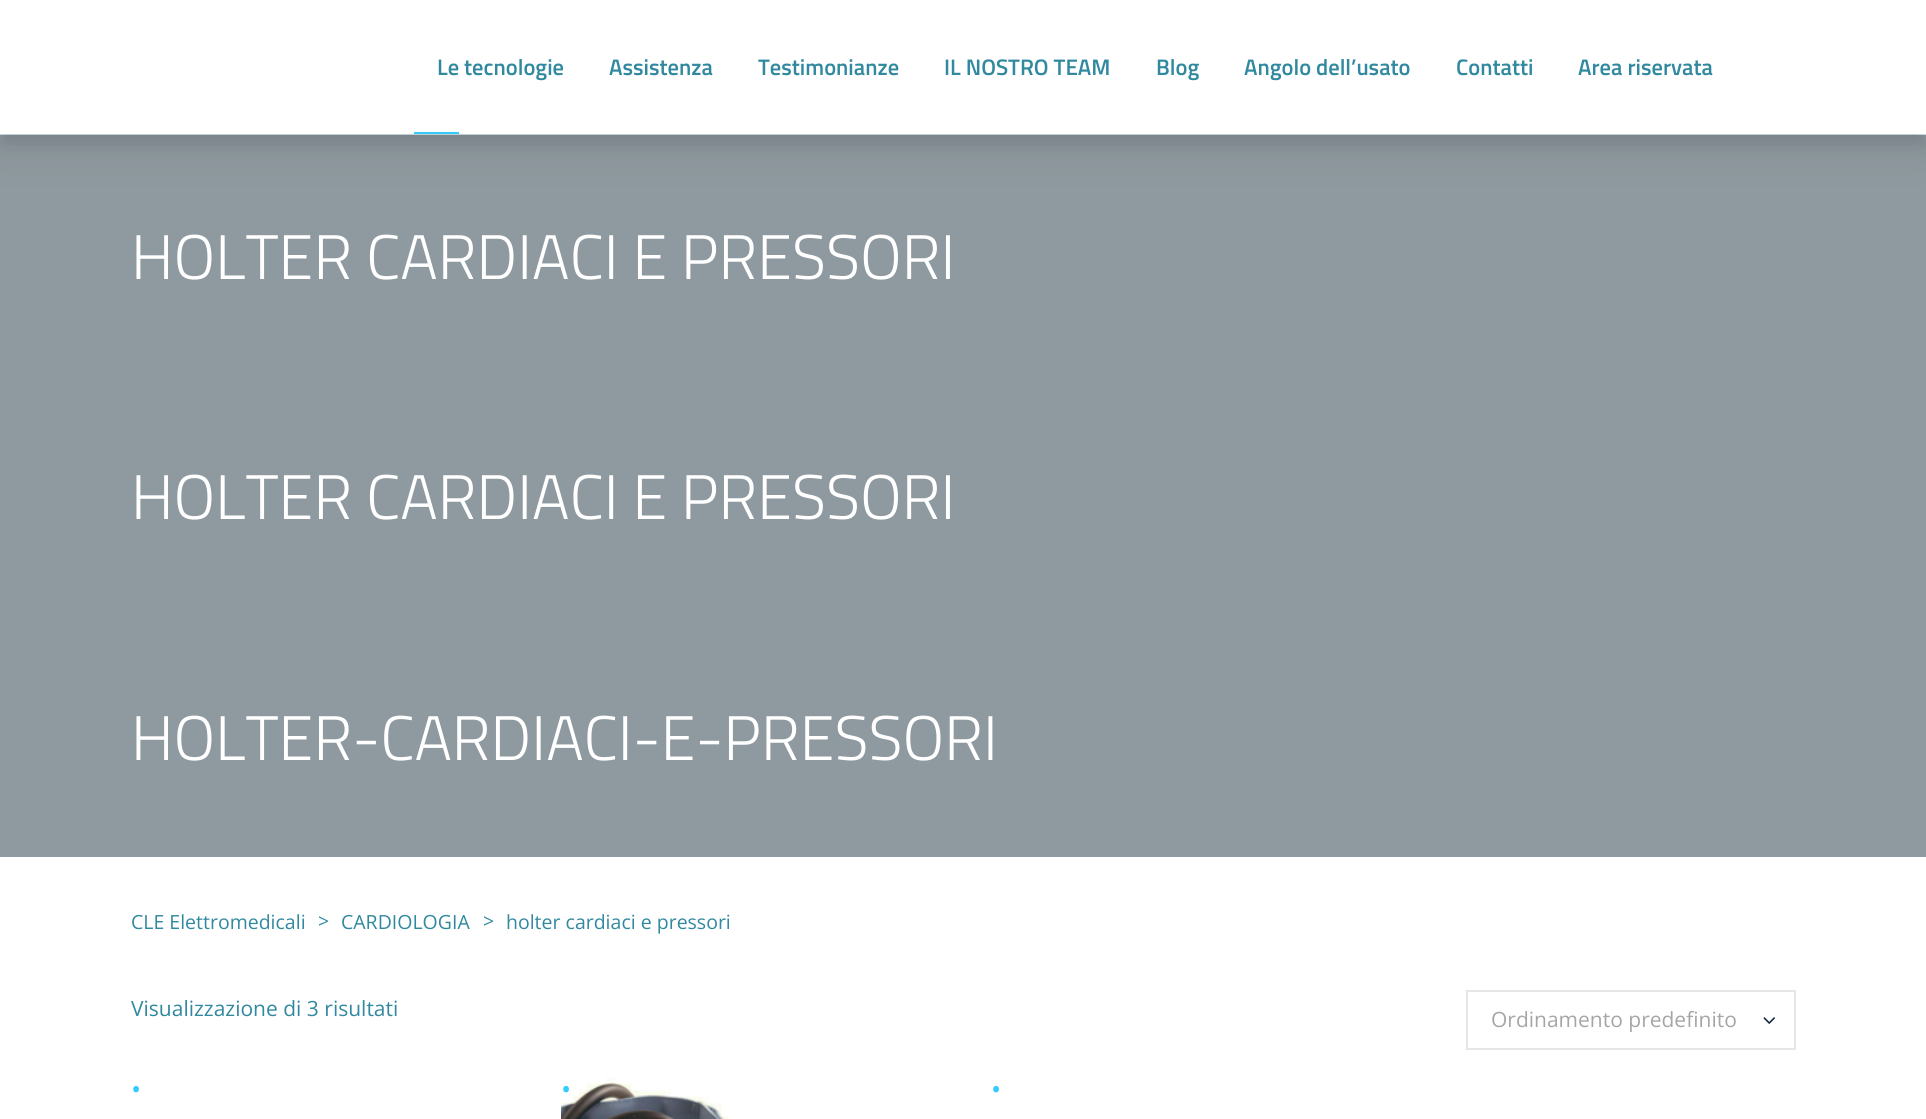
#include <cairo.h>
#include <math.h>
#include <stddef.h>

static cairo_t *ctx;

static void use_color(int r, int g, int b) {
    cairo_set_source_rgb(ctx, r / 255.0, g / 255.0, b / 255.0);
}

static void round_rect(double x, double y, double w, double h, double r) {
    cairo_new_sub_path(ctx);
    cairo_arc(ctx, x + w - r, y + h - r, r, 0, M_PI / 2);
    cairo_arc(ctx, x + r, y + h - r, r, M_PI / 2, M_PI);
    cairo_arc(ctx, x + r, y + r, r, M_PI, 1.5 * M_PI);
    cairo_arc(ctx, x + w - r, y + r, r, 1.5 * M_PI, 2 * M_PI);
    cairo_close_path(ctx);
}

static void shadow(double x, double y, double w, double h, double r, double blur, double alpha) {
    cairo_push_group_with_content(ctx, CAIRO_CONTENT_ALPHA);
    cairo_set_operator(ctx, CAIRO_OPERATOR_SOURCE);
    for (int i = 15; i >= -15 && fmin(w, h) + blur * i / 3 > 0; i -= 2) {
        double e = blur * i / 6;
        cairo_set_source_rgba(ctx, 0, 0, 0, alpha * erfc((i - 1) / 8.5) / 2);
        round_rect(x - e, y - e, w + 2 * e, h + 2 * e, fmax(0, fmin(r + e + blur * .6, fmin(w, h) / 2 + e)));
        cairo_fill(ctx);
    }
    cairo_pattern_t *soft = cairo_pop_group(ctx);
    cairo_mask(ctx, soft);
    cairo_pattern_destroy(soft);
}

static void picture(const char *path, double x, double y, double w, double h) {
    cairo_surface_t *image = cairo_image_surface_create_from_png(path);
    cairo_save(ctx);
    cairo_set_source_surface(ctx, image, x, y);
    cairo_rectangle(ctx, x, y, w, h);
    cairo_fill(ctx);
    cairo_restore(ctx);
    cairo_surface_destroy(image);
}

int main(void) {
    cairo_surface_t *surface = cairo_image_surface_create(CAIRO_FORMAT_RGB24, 1926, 1119);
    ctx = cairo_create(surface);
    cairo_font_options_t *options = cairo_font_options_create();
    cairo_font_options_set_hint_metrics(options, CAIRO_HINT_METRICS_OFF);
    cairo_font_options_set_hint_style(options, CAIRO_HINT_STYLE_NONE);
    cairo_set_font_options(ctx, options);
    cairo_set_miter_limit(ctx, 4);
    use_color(255, 255, 255);
    cairo_paint(ctx);
    use_color(218, 237, 245);
    cairo_rectangle(ctx, 0, 134, 1926, 1);
    cairo_fill(ctx);
    use_color(143, 154, 160);
    cairo_rectangle(ctx, 0, 135, 1926, 722);
    cairo_fill(ctx);
    use_color(0, 0, 0);
    shadow(0, 12, 1926, 134, 0, 6, 0.07);
    shadow(0, 15, 1926, 134, 0, 21, 0.1);
    use_color(255, 255, 255);
    cairo_rectangle(ctx, 0, 0, 1926, 134);
    cairo_fill(ctx);
    cairo_select_font_face(ctx, "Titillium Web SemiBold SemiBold", CAIRO_FONT_SLANT_NORMAL, CAIRO_FONT_WEIGHT_NORMAL);
    cairo_set_font_size(ctx, 22.5);
    use_color(49, 137, 159);
    cairo_move_to(ctx, 437, 75);
    cairo_show_text(ctx, "Le tecnologie");
    cairo_move_to(ctx, 609, 75);
    cairo_show_text(ctx, "Assistenza");
    cairo_move_to(ctx, 758, 75);
    cairo_show_text(ctx, "Testimonianze");
    cairo_move_to(ctx, 944, 75);
    cairo_show_text(ctx, "IL NOSTRO TEAM");
    cairo_move_to(ctx, 1156, 75);
    cairo_show_text(ctx, "Blog");
    cairo_move_to(ctx, 1244, 75);
    cairo_show_text(ctx, "Angolo dell’usato");
    cairo_move_to(ctx, 1456, 75);
    cairo_show_text(ctx, "Contatti");
    cairo_move_to(ctx, 1578, 75);
    cairo_show_text(ctx, "Area riservata");
    use_color(52, 204, 255);
    cairo_rectangle(ctx, 414, 132, 45, 2);
    cairo_fill(ctx);
    cairo_select_font_face(ctx, "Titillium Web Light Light", CAIRO_FONT_SLANT_NORMAL, CAIRO_FONT_WEIGHT_NORMAL);
    cairo_set_font_size(ctx, 63);
    use_color(255, 255, 255);
    cairo_move_to(ctx, 131, 279);
    cairo_show_text(ctx, "HOLTER CARDIACI E PRESSORI");
    cairo_move_to(ctx, 131, 519);
    cairo_show_text(ctx, "HOLTER CARDIACI E PRESSORI");
    cairo_move_to(ctx, 131, 760);
    cairo_show_text(ctx, "HOLTER-CARDIACI-E-PRESSORI");
    cairo_select_font_face(ctx, "Open Sans", CAIRO_FONT_SLANT_NORMAL, CAIRO_FONT_WEIGHT_NORMAL);
    cairo_set_font_size(ctx, 19.5);
    use_color(49, 137, 159);
    cairo_move_to(ctx, 131, 929);
    cairo_show_text(ctx, "CLE Elettromedicali");
    cairo_move_to(ctx, 318, 928);
    cairo_show_text(ctx, ">");
    cairo_move_to(ctx, 341, 929);
    cairo_show_text(ctx, "CARDIOLOGIA");
    cairo_move_to(ctx, 483, 928);
    cairo_show_text(ctx, ">");
    cairo_move_to(ctx, 506, 929);
    cairo_show_text(ctx, "holter cardiaci e pressori");
    cairo_set_font_size(ctx, 21);
    cairo_move_to(ctx, 131, 1016);
    cairo_show_text(ctx, "Visualizzazione di 3 risultati");
    cairo_rectangle(ctx, 1467, 991, 328, 58);
    use_color(230, 230, 230);
    cairo_stroke(ctx);
    use_color(166, 166, 166);
    cairo_move_to(ctx, 1491, 1027);
    cairo_show_text(ctx, "Ordinamento predefinito");
    picture("img1.png", 1763, 1017, 12, 7);
    cairo_set_font_size(ctx, 27);
    use_color(52, 204, 255);
    cairo_move_to(ctx, 131, 1099);
    cairo_show_text(ctx, "•");
    picture("img2.png", 561, 1077, 167, 42);
    cairo_move_to(ctx, 561, 1099);
    cairo_show_text(ctx, "•");
    cairo_move_to(ctx, 991, 1099);
    cairo_show_text(ctx, "•");
    cairo_surface_write_to_png(surface, "result.png");
    cairo_font_options_destroy(options);
    cairo_destroy(ctx);
    cairo_surface_destroy(surface);
    return 0;
}
